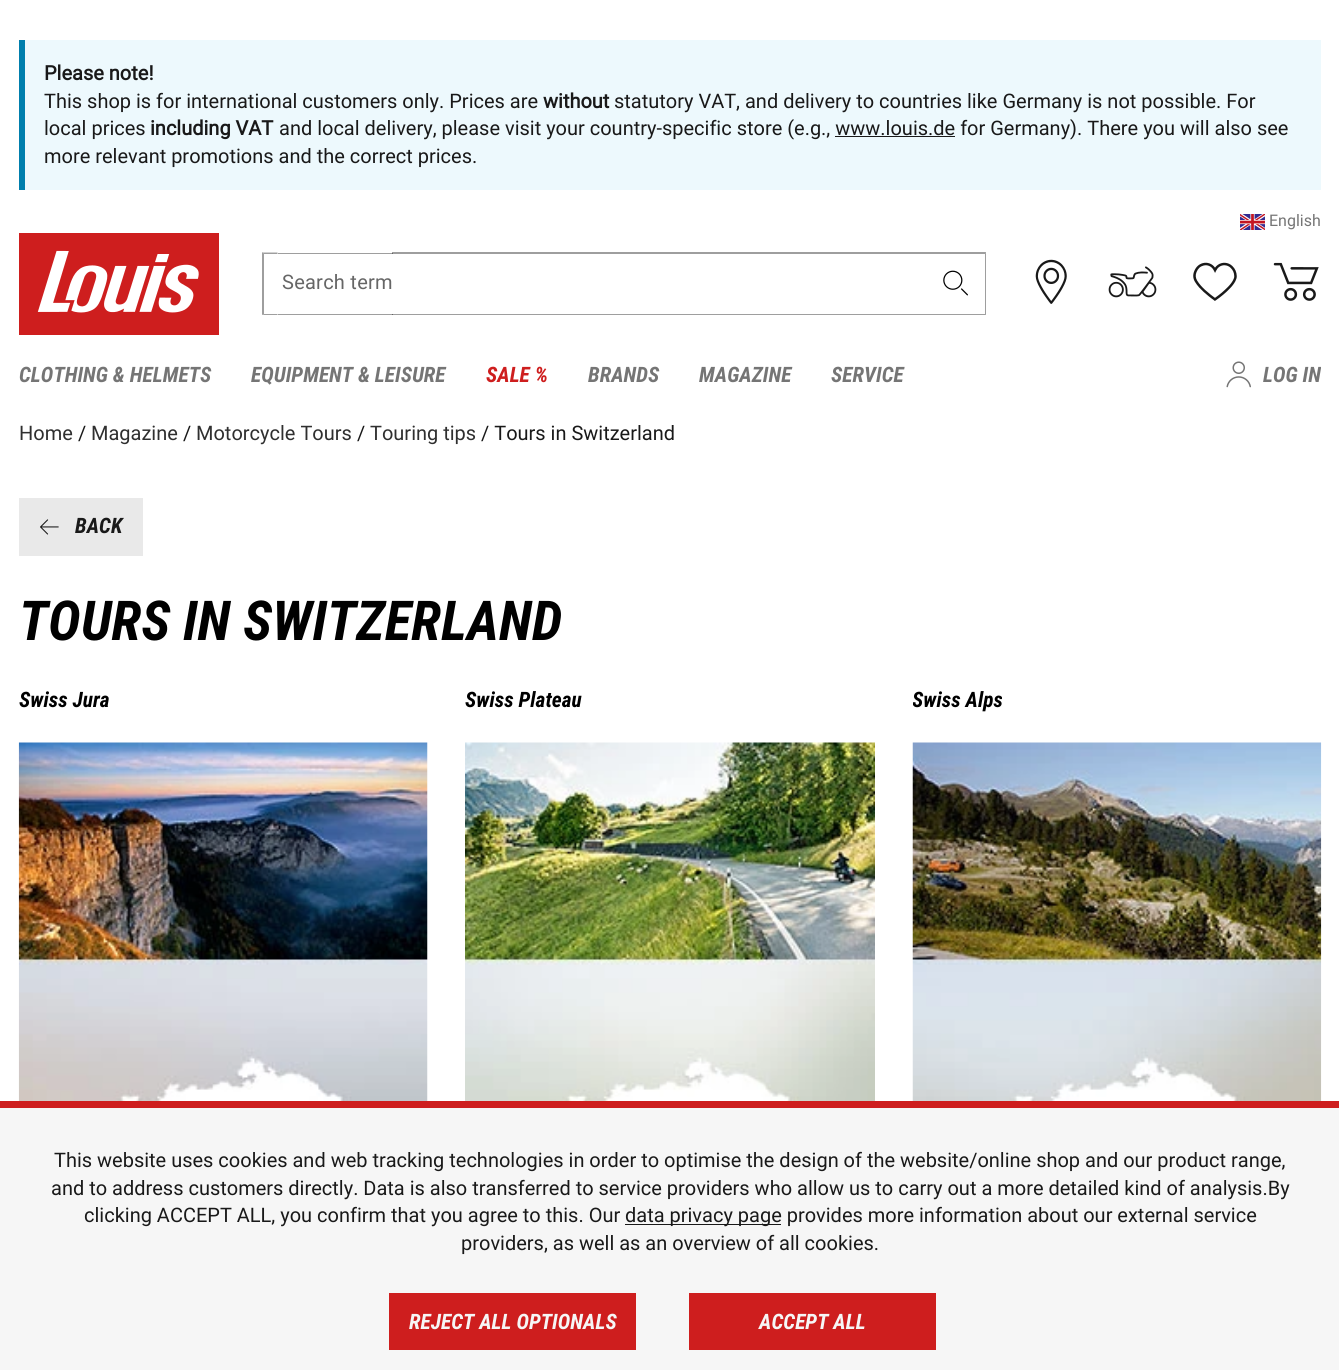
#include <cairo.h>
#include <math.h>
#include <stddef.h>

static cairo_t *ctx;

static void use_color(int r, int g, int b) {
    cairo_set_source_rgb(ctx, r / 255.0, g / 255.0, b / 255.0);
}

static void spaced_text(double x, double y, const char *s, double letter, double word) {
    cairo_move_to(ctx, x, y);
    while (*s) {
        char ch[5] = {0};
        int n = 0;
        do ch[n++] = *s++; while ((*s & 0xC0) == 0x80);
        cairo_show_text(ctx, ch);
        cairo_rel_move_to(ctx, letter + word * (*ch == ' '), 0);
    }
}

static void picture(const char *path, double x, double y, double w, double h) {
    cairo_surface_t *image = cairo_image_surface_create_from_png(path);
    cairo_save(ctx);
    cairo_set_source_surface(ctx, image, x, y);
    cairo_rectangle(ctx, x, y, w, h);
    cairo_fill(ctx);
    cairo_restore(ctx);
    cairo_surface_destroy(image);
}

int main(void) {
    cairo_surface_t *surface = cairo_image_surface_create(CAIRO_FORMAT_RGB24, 1339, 1370);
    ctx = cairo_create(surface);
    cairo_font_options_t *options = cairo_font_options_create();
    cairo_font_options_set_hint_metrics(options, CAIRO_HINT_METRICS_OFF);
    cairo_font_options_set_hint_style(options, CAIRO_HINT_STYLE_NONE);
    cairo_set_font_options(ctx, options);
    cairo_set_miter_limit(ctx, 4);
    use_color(255, 255, 255);
    cairo_paint(ctx);
    use_color(237, 249, 253);
    cairo_rectangle(ctx, 25, 40, 1296, 150);
    cairo_fill(ctx);
    use_color(0, 127, 173);
    cairo_rectangle(ctx, 19, 40, 6, 150);
    cairo_fill(ctx);
    cairo_select_font_face(ctx, "Roboto", CAIRO_FONT_SLANT_NORMAL, CAIRO_FONT_WEIGHT_BOLD);
    cairo_set_font_size(ctx, 20);
    use_color(25, 25, 25);
    cairo_move_to(ctx, 44, 80);
    cairo_show_text(ctx, "Please note!");
    cairo_select_font_face(ctx, "Roboto", CAIRO_FONT_SLANT_NORMAL, CAIRO_FONT_WEIGHT_NORMAL);
    cairo_move_to(ctx, 44, 108);
    cairo_show_text(ctx, "This shop is for international customers only. Prices are");
    cairo_select_font_face(ctx, "Roboto", CAIRO_FONT_SLANT_NORMAL, CAIRO_FONT_WEIGHT_BOLD);
    cairo_move_to(ctx, 543, 108);
    cairo_show_text(ctx, "without");
    cairo_select_font_face(ctx, "Roboto", CAIRO_FONT_SLANT_NORMAL, CAIRO_FONT_WEIGHT_NORMAL);
    cairo_move_to(ctx, 614, 108);
    cairo_show_text(ctx, "statutory VAT, and delivery to countries like Germany is not possible. For");
    cairo_move_to(ctx, 44, 135);
    cairo_show_text(ctx, "local prices");
    cairo_select_font_face(ctx, "Roboto", CAIRO_FONT_SLANT_NORMAL, CAIRO_FONT_WEIGHT_BOLD);
    cairo_move_to(ctx, 150, 135);
    cairo_show_text(ctx, "including VAT");
    cairo_select_font_face(ctx, "Roboto", CAIRO_FONT_SLANT_NORMAL, CAIRO_FONT_WEIGHT_NORMAL);
    cairo_move_to(ctx, 279, 135);
    cairo_show_text(ctx, "and local delivery, please visit your country-specific store (e.g., www.louis.de for Germany). There you will also see");
    cairo_rectangle(ctx, 835, 136, 120, 1);
    cairo_fill(ctx);
    cairo_move_to(ctx, 44, 163);
    cairo_show_text(ctx, "more relevant promotions and the correct prices.");
    picture("img1.png", 1240, 214, 25, 16);
    cairo_set_font_size(ctx, 16);
    use_color(117, 117, 117);
    cairo_move_to(ctx, 1269, 226);
    cairo_show_text(ctx, "English");
    picture("img2.png", 19, 233, 200, 102);
    use_color(158, 158, 158);
    cairo_new_path(ctx);
    cairo_move_to(ctx, 262.5, 252.5);
    cairo_line_to(ctx, 277.5, 252.5);
    cairo_line_to(ctx, 277.5, 254);
    cairo_line_to(ctx, 264, 254);
    cairo_close_path(ctx);
    cairo_move_to(ctx, 277.5, 315);
    cairo_line_to(ctx, 262.5, 315);
    cairo_line_to(ctx, 264, 314);
    cairo_line_to(ctx, 277.5, 314);
    cairo_close_path(ctx);
    cairo_fill(ctx);
    cairo_set_source_rgba(ctx, 0, 0, 0, 0.38);
    cairo_new_path(ctx);
    cairo_move_to(ctx, 262, 315);
    cairo_line_to(ctx, 262, 252);
    cairo_line_to(ctx, 264, 254);
    cairo_line_to(ctx, 264, 314);
    cairo_close_path(ctx);
    cairo_fill(ctx);
    use_color(158, 158, 158);
    cairo_rectangle(ctx, 278, 253, 115, 1);
    cairo_fill(ctx);
    cairo_rectangle(ctx, 278, 314, 115, 1);
    cairo_fill(ctx);
    cairo_select_font_face(ctx, "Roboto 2", CAIRO_FONT_SLANT_NORMAL, CAIRO_FONT_WEIGHT_NORMAL);
    cairo_set_font_size(ctx, 20);
    use_color(102, 102, 102);
    spaced_text(282, 289, "Search term", 0.25, 0);
    cairo_set_source_rgba(ctx, 0, 0, 0, 0.38);
    cairo_new_path(ctx);
    cairo_move_to(ctx, 392, 252);
    cairo_line_to(ctx, 986, 252);
    cairo_line_to(ctx, 985, 254);
    cairo_line_to(ctx, 392, 254);
    cairo_close_path(ctx);
    cairo_fill(ctx);
    cairo_new_path(ctx);
    cairo_move_to(ctx, 986, 252);
    cairo_line_to(ctx, 986, 315);
    cairo_line_to(ctx, 985, 314);
    cairo_line_to(ctx, 985, 254);
    cairo_close_path(ctx);
    cairo_fill(ctx);
    cairo_new_path(ctx);
    cairo_move_to(ctx, 986, 315);
    cairo_line_to(ctx, 392, 315);
    cairo_line_to(ctx, 392, 314);
    cairo_line_to(ctx, 985, 314);
    cairo_close_path(ctx);
    cairo_fill(ctx);
    picture("img3.png", 943, 270, 25, 26);
    picture("img4.png", 1035, 259, 32, 45);
    picture("img5.png", 1108, 266, 49, 32);
    picture("img6.png", 1193, 262, 44, 39);
    picture("img7.png", 1273, 262, 46, 39);
    cairo_select_font_face(ctx, "Roboto Condensed", CAIRO_FONT_SLANT_ITALIC, CAIRO_FONT_WEIGHT_BOLD);
    cairo_set_font_size(ctx, 21.25);
    use_color(117, 117, 117);
    cairo_move_to(ctx, 19, 382);
    cairo_show_text(ctx, "CLOTHING & HELMETS");
    cairo_move_to(ctx, 251, 382);
    cairo_show_text(ctx, "EQUIPMENT & LEISURE");
    use_color(206, 30, 30);
    cairo_move_to(ctx, 486, 382);
    cairo_show_text(ctx, "SALE %");
    use_color(117, 117, 117);
    cairo_move_to(ctx, 588, 382);
    cairo_show_text(ctx, "BRANDS");
    cairo_move_to(ctx, 699, 382);
    cairo_show_text(ctx, "MAGAZINE");
    cairo_move_to(ctx, 831, 382);
    cairo_show_text(ctx, "SERVICE");
    picture("img8.png", 1226, 361, 25, 27);
    cairo_move_to(ctx, 1263, 382);
    cairo_show_text(ctx, "LOG IN");
    cairo_select_font_face(ctx, "Roboto", CAIRO_FONT_SLANT_NORMAL, CAIRO_FONT_WEIGHT_NORMAL);
    cairo_set_font_size(ctx, 20);
    use_color(47, 47, 47);
    cairo_move_to(ctx, 19, 440);
    cairo_show_text(ctx, "Home");
    use_color(25, 25, 25);
    cairo_move_to(ctx, 78, 440);
    cairo_show_text(ctx, "/");
    use_color(47, 47, 47);
    cairo_move_to(ctx, 91, 440);
    cairo_show_text(ctx, "Magazine");
    use_color(25, 25, 25);
    cairo_move_to(ctx, 183, 440);
    cairo_show_text(ctx, "/");
    use_color(47, 47, 47);
    cairo_move_to(ctx, 196, 440);
    cairo_show_text(ctx, "Motorcycle Tours");
    use_color(25, 25, 25);
    cairo_move_to(ctx, 357, 440);
    cairo_show_text(ctx, "/");
    use_color(47, 47, 47);
    cairo_move_to(ctx, 370, 440);
    cairo_show_text(ctx, "Touring tips");
    use_color(25, 25, 25);
    cairo_move_to(ctx, 481, 440);
    cairo_show_text(ctx, "/ Tours in Switzerland");
    use_color(233, 233, 233);
    cairo_rectangle(ctx, 19, 498, 124, 58);
    cairo_fill(ctx);
    picture("img9.png", 40, 519, 19, 16);
    cairo_select_font_face(ctx, "Roboto Condensed", CAIRO_FONT_SLANT_ITALIC, CAIRO_FONT_WEIGHT_BOLD);
    cairo_set_font_size(ctx, 21.25);
    use_color(25, 25, 25);
    cairo_move_to(ctx, 75, 533);
    cairo_show_text(ctx, "BACK");
    cairo_set_font_size(ctx, 55);
    use_color(0, 0, 0);
    cairo_move_to(ctx, 19, 640);
    cairo_show_text(ctx, "TOURS IN SWITZERLAND");
    cairo_set_font_size(ctx, 21.25);
    cairo_move_to(ctx, 19, 707);
    cairo_show_text(ctx, "Swiss Jura");
    picture("img10.png", 18, 742, 410, 359);
    cairo_move_to(ctx, 465, 707);
    cairo_show_text(ctx, "Swiss Plateau");
    picture("img11.png", 465, 742, 410, 359);
    cairo_save(ctx);
    cairo_rectangle(ctx, 913, 685, 408, 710);
    cairo_clip(ctx);
    cairo_move_to(ctx, 912, 707);
    cairo_show_text(ctx, "Swiss Alps");
    cairo_restore(ctx);
    picture("img12.png", 912, 742, 410, 359);
    use_color(246, 246, 246);
    cairo_rectangle(ctx, 0, 1108, 1339, 262);
    cairo_fill(ctx);
    use_color(206, 30, 30);
    cairo_rectangle(ctx, 0, 1101, 1339, 7);
    cairo_fill(ctx);
    cairo_select_font_face(ctx, "Roboto", CAIRO_FONT_SLANT_NORMAL, CAIRO_FONT_WEIGHT_NORMAL);
    cairo_set_font_size(ctx, 20);
    use_color(25, 25, 25);
    cairo_move_to(ctx, 54, 1167);
    cairo_show_text(ctx, "This website uses cookies and web tracking technologies in order to optimise the design of the website/online shop and our product range,");
    cairo_move_to(ctx, 51, 1195);
    cairo_show_text(ctx, "and to address customers directly. Data is also transferred to service providers who allow us to carry out a more detailed kind of analysis.By");
    cairo_move_to(ctx, 84, 1222);
    cairo_show_text(ctx, "clicking ACCEPT ALL, you confirm that you agree to this. Our");
    cairo_rectangle(ctx, 625, 1224, 156, 1);
    cairo_fill(ctx);
    cairo_move_to(ctx, 625, 1222);
    cairo_show_text(ctx, "data privacy page provides more information about our external service");
    cairo_move_to(ctx, 461, 1250);
    cairo_show_text(ctx, "providers, as well as an overview of all cookies.");
    use_color(206, 30, 30);
    cairo_rectangle(ctx, 389, 1293, 247, 57);
    cairo_fill(ctx);
    cairo_select_font_face(ctx, "Roboto Condensed", CAIRO_FONT_SLANT_ITALIC, CAIRO_FONT_WEIGHT_BOLD);
    cairo_set_font_size(ctx, 21.25);
    use_color(246, 246, 246);
    cairo_move_to(ctx, 409, 1329);
    cairo_show_text(ctx, "REJECT ALL OPTIONALS");
    use_color(206, 30, 30);
    cairo_rectangle(ctx, 689, 1293, 247, 57);
    cairo_fill(ctx);
    use_color(246, 246, 246);
    cairo_move_to(ctx, 759, 1329);
    cairo_show_text(ctx, "ACCEPT ALL");
    cairo_surface_write_to_png(surface, "result.png");
    cairo_font_options_destroy(options);
    cairo_destroy(ctx);
    cairo_surface_destroy(surface);
    return 0;
}
